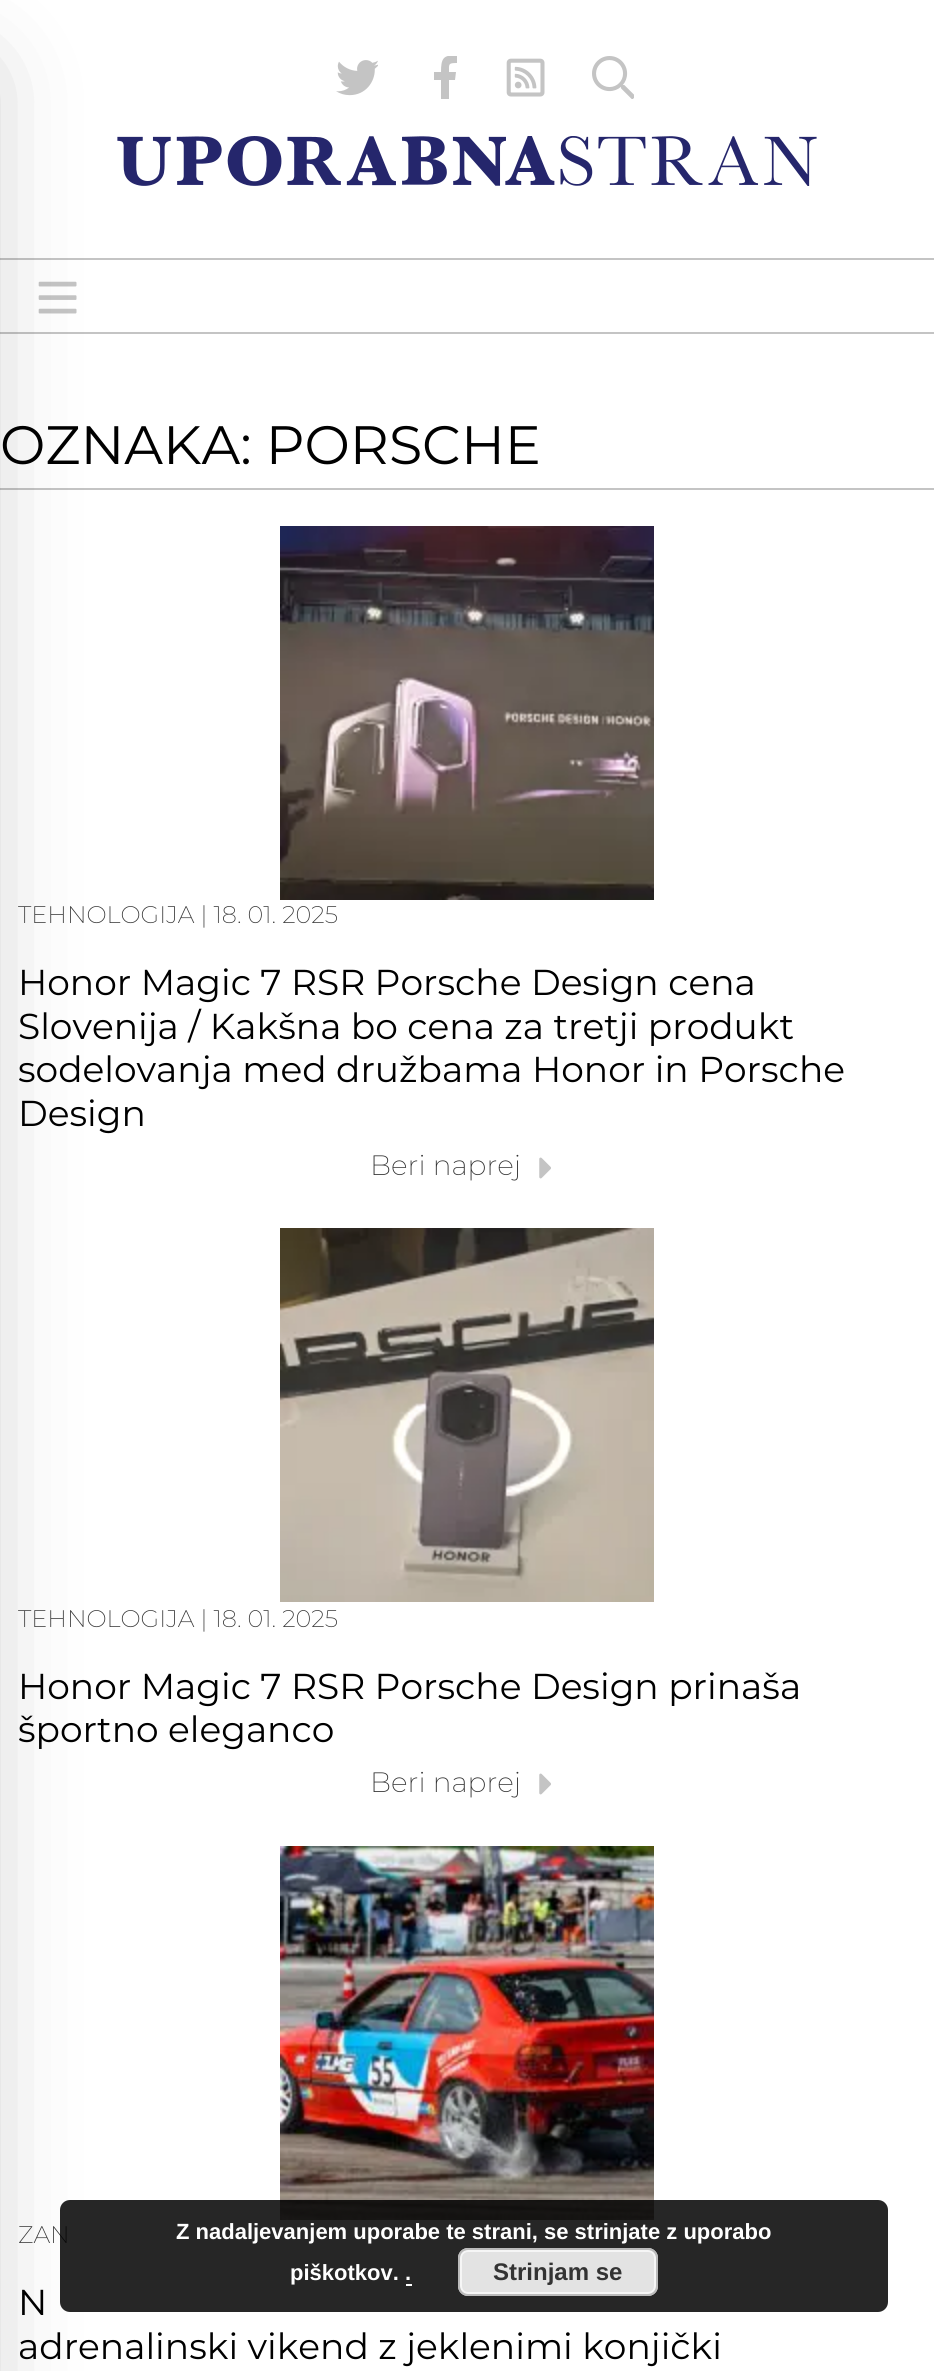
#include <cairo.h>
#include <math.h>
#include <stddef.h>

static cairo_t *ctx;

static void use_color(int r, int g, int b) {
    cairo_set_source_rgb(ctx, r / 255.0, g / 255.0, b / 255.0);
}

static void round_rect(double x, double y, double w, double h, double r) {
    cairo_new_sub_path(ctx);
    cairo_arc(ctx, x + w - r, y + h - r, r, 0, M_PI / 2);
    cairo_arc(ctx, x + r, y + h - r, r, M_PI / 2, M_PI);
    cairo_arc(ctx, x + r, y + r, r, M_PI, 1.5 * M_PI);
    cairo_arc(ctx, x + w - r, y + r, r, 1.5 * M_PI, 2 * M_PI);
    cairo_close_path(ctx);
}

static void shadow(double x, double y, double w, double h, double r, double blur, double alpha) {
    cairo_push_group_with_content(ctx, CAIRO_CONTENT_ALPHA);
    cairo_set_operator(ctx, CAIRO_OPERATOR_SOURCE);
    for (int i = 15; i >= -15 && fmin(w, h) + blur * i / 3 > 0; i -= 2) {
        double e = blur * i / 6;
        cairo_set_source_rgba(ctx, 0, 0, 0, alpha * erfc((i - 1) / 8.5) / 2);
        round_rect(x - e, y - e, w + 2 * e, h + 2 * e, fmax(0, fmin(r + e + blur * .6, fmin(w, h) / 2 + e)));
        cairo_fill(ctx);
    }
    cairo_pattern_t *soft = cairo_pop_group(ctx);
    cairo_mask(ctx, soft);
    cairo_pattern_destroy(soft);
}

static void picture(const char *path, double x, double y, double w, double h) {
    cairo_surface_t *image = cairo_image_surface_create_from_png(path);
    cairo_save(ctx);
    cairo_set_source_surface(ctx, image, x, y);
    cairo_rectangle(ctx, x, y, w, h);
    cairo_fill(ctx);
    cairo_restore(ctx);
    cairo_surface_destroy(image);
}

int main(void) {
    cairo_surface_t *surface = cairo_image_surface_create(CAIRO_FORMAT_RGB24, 934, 2371);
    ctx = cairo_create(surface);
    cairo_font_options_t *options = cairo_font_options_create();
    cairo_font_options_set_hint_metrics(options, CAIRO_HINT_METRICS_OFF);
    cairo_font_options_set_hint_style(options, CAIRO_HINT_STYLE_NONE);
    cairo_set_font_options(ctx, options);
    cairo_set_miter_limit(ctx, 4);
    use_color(255, 255, 255);
    cairo_paint(ctx);
    picture("img4.png", 117, 136, 700, 50);
    use_color(196, 196, 196);
    cairo_rectangle(ctx, 0, 258, 934, 2);
    cairo_fill(ctx);
    cairo_rectangle(ctx, 0, 332, 934, 2);
    cairo_fill(ctx);
    picture("img5.png", 38, 281, 39, 33);
    cairo_rectangle(ctx, 0, 488, 934, 2);
    cairo_fill(ctx);
    picture("img9.png", 280, 1846, 374, 374);
    cairo_select_font_face(ctx, "Montserrat ExtraLight", CAIRO_FONT_SLANT_NORMAL, CAIRO_FONT_WEIGHT_NORMAL);
    cairo_set_font_size(ctx, 24);
    use_color(51, 51, 51);
    cairo_move_to(ctx, 18, 2243);
    cairo_show_text(ctx, "ZAN");
    cairo_set_source_rgba(ctx, 0, 0, 0, 0.85);
    round_rect(60, 2200, 828, 112, 10);
    cairo_fill(ctx);
    use_color(0, 0, 0);
    shadow(-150, 74, 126, 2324, 0, 50, 0.25);
    picture("img1.png", 336, 60, 42, 36);
    cairo_save(ctx);
    cairo_rectangle(ctx, 424, 56, 43, 43);
    cairo_clip(ctx);
    use_color(196, 196, 196);
    cairo_new_path(ctx);
    cairo_move_to(ctx, 441, 99);
    cairo_line_to(ctx, 441, 80);
    cairo_line_to(ctx, 434, 80);
    cairo_line_to(ctx, 434, 72);
    cairo_line_to(ctx, 441, 72);
    cairo_curve_to(ctx, 441, 59, 443, 54, 457, 56);
    cairo_line_to(ctx, 457, 63);
    cairo_curve_to(ctx, 448, 63, 449, 64, 449, 72);
    cairo_line_to(ctx, 456, 72);
    cairo_line_to(ctx, 455, 80);
    cairo_line_to(ctx, 449, 80);
    cairo_line_to(ctx, 449, 99);
    cairo_fill(ctx);
    cairo_restore(ctx);
    picture("img2.png", 506, 58, 39, 39);
    picture("img3.png", 592, 56, 42, 43);
    cairo_select_font_face(ctx, "Montserrat", CAIRO_FONT_SLANT_NORMAL, CAIRO_FONT_WEIGHT_NORMAL);
    cairo_set_font_size(ctx, 54);
    use_color(0, 0, 0);
    cairo_move_to(ctx, 0, 464);
    cairo_show_text(ctx, "OZNAKA: PORSCHE");
    picture("img6.png", 280, 526, 374, 374);
    cairo_select_font_face(ctx, "Montserrat ExtraLight", CAIRO_FONT_SLANT_NORMAL, CAIRO_FONT_WEIGHT_NORMAL);
    cairo_set_font_size(ctx, 24);
    use_color(51, 51, 51);
    cairo_move_to(ctx, 18, 923);
    cairo_show_text(ctx, "TEHNOLOGIJA | 18. 01. 2025");
    cairo_select_font_face(ctx, "Montserrat", CAIRO_FONT_SLANT_NORMAL, CAIRO_FONT_WEIGHT_NORMAL);
    cairo_set_font_size(ctx, 36);
    use_color(0, 0, 0);
    cairo_move_to(ctx, 18, 995);
    cairo_show_text(ctx, "Honor Magic 7 RSR Porsche Design cena");
    cairo_move_to(ctx, 18, 1039);
    cairo_show_text(ctx, "Slovenija / Kakšna bo cena za tretji produkt");
    cairo_move_to(ctx, 18, 1082);
    cairo_show_text(ctx, "sodelovanja med družbama Honor in Porsche");
    cairo_move_to(ctx, 18, 1126);
    cairo_show_text(ctx, "Design");
    cairo_select_font_face(ctx, "Montserrat ExtraLight", CAIRO_FONT_SLANT_NORMAL, CAIRO_FONT_WEIGHT_NORMAL);
    cairo_set_font_size(ctx, 28);
    use_color(51, 51, 51);
    cairo_move_to(ctx, 370, 1175);
    cairo_show_text(ctx, "Beri naprej");
    picture("img7.png", 539, 1157, 12, 22);
    picture("img8.png", 280, 1228, 374, 374);
    cairo_set_font_size(ctx, 24);
    cairo_move_to(ctx, 18, 1627);
    cairo_show_text(ctx, "TEHNOLOGIJA | 18. 01. 2025");
    cairo_select_font_face(ctx, "Montserrat", CAIRO_FONT_SLANT_NORMAL, CAIRO_FONT_WEIGHT_NORMAL);
    cairo_set_font_size(ctx, 36);
    use_color(0, 0, 0);
    cairo_move_to(ctx, 18, 1699);
    cairo_show_text(ctx, "Honor Magic 7 RSR Porsche Design prinaša");
    cairo_move_to(ctx, 18, 1742);
    cairo_show_text(ctx, "športno eleganco");
    cairo_select_font_face(ctx, "Montserrat ExtraLight", CAIRO_FONT_SLANT_NORMAL, CAIRO_FONT_WEIGHT_NORMAL);
    cairo_set_font_size(ctx, 28);
    use_color(51, 51, 51);
    cairo_move_to(ctx, 370, 1792);
    cairo_show_text(ctx, "Beri naprej");
    picture("img7.png", 539, 1773, 12, 22);
    cairo_select_font_face(ctx, "Montserrat", CAIRO_FONT_SLANT_NORMAL, CAIRO_FONT_WEIGHT_NORMAL);
    cairo_set_font_size(ctx, 36);
    use_color(0, 0, 0);
    cairo_move_to(ctx, 18, 2315);
    cairo_show_text(ctx, "N");
    cairo_move_to(ctx, 18, 2359);
    cairo_show_text(ctx, "adrenalinski vikend z jeklenimi konjički");
    cairo_select_font_face(ctx, "Liberation Sans", CAIRO_FONT_SLANT_NORMAL, CAIRO_FONT_WEIGHT_BOLD);
    cairo_set_font_size(ctx, 22);
    use_color(255, 255, 255);
    cairo_move_to(ctx, 176, 2239);
    cairo_show_text(ctx, "Z nadaljevanjem uporabe te strani, se strinjate z uporabo");
    cairo_move_to(ctx, 290, 2280);
    cairo_show_text(ctx, "piškotkov. .");
    use_color(227, 227, 227);
    round_rect(458, 2248, 200, 48, 10);
    cairo_fill(ctx);
    round_rect(461, 2251, 194, 42, 7);
    use_color(246, 246, 246);
    cairo_stroke(ctx);
    round_rect(459, 2249, 198, 46, 9);
    use_color(187, 187, 187);
    cairo_stroke(ctx);
    cairo_set_font_size(ctx, 24);
    use_color(51, 51, 51);
    cairo_move_to(ctx, 493, 2280);
    cairo_show_text(ctx, "Strinjam se");
    use_color(255, 255, 255);
    cairo_rectangle(ctx, 406, 2284, 6, 2);
    cairo_fill(ctx);
    cairo_surface_write_to_png(surface, "result.png");
    cairo_font_options_destroy(options);
    cairo_destroy(ctx);
    cairo_surface_destroy(surface);
    return 0;
}
